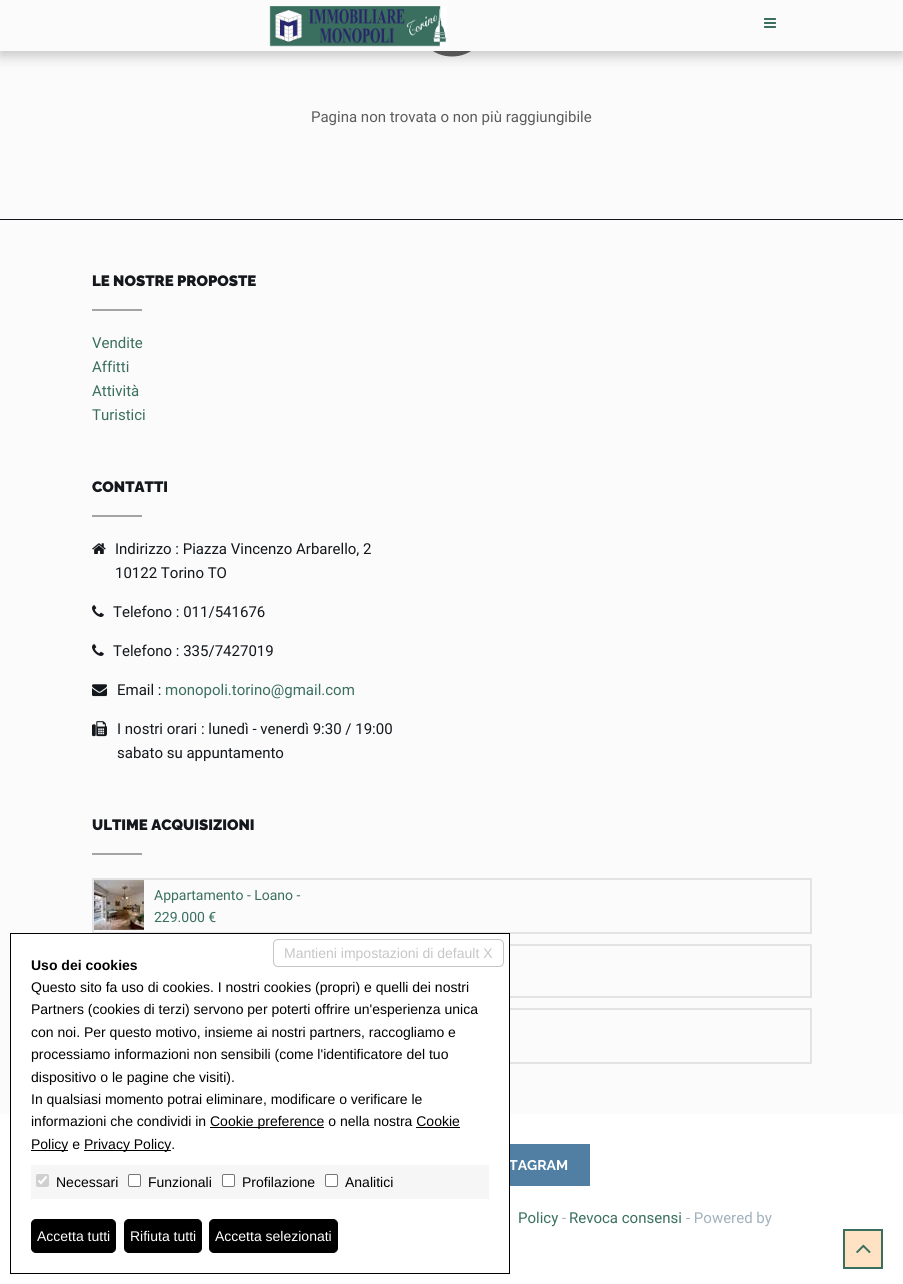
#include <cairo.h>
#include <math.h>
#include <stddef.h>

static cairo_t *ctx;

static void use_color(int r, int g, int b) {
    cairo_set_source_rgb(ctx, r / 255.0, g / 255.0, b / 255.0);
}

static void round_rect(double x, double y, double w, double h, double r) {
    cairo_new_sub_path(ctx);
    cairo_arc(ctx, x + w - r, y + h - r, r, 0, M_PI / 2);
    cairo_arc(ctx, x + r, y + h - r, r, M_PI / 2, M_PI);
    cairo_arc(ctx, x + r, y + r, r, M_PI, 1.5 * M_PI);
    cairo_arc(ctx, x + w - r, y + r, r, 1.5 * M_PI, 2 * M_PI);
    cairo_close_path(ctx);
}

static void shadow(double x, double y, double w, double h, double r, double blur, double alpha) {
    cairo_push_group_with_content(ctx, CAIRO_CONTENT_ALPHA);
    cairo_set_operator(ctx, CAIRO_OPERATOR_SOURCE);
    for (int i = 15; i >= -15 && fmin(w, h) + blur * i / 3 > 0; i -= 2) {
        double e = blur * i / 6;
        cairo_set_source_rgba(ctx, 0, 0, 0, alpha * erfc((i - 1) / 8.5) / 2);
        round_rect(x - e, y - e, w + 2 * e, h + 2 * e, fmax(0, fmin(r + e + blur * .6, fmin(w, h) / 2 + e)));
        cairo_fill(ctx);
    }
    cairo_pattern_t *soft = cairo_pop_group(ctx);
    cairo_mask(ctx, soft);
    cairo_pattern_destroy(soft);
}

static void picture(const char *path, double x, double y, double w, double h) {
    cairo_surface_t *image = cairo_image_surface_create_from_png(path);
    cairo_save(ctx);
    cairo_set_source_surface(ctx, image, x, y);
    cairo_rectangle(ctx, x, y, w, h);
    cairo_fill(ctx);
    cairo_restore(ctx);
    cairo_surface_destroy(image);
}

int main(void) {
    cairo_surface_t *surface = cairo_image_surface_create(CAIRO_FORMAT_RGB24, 903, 1284);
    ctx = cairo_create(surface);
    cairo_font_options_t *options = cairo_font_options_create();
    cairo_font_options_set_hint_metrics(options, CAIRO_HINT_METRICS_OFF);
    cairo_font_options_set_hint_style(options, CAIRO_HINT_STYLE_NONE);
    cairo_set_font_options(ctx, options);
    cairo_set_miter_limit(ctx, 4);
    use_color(251, 251, 251);
    cairo_paint(ctx);
    picture("img3.png", 433, 51, 38, 6);
    use_color(50, 50, 50);
    shadow(0, 4, 903, 51, 0, 7, 0.3);
    use_color(251, 251, 251);
    cairo_rectangle(ctx, 0, 0, 903, 51);
    cairo_fill(ctx);
    picture("img1.png", 269, 6, 178, 41);
    picture("img2.png", 764, 18, 12, 10);
    cairo_select_font_face(ctx, "Roboto", CAIRO_FONT_SLANT_NORMAL, CAIRO_FONT_WEIGHT_NORMAL);
    cairo_set_font_size(ctx, 15);
    use_color(92, 92, 92);
    cairo_move_to(ctx, 311, 122);
    cairo_show_text(ctx, "Pagina non trovata o non più raggiungibile");
    use_color(20, 24, 28);
    cairo_rectangle(ctx, 0, 219, 903, 1);
    cairo_fill(ctx);
    cairo_select_font_face(ctx, "Raleway Black", CAIRO_FONT_SLANT_NORMAL, CAIRO_FONT_WEIGHT_NORMAL);
    cairo_move_to(ctx, 92, 286);
    cairo_show_text(ctx, "LE NOSTRE PROPOSTE");
    use_color(163, 164, 165);
    cairo_rectangle(ctx, 92, 309, 50, 2);
    cairo_fill(ctx);
    cairo_select_font_face(ctx, "Roboto", CAIRO_FONT_SLANT_NORMAL, CAIRO_FONT_WEIGHT_NORMAL);
    use_color(58, 111, 95);
    cairo_move_to(ctx, 92, 348);
    cairo_show_text(ctx, "Vendite");
    cairo_move_to(ctx, 92, 372);
    cairo_show_text(ctx, "Affitti");
    cairo_move_to(ctx, 92, 396);
    cairo_show_text(ctx, "Attività");
    cairo_move_to(ctx, 92, 420);
    cairo_show_text(ctx, "Turistici");
    cairo_select_font_face(ctx, "Raleway Black", CAIRO_FONT_SLANT_NORMAL, CAIRO_FONT_WEIGHT_NORMAL);
    use_color(20, 24, 28);
    cairo_move_to(ctx, 92, 492);
    cairo_show_text(ctx, "CONTATTI");
    use_color(163, 164, 165);
    cairo_rectangle(ctx, 92, 515, 50, 2);
    cairo_fill(ctx);
    picture("img4.png", 92, 543, 14, 11);
    cairo_select_font_face(ctx, "Roboto", CAIRO_FONT_SLANT_NORMAL, CAIRO_FONT_WEIGHT_NORMAL);
    use_color(20, 24, 28);
    cairo_move_to(ctx, 115, 554);
    cairo_show_text(ctx, "Indirizzo : Piazza Vincenzo Arbarello, 2");
    cairo_move_to(ctx, 115, 578);
    cairo_show_text(ctx, "10122 Torino TO");
    picture("img5.png", 92, 605, 12, 12);
    cairo_move_to(ctx, 113, 617);
    cairo_show_text(ctx, "Telefono : 011/541676");
    picture("img5.png", 92, 644, 12, 12);
    cairo_move_to(ctx, 113, 656);
    cairo_show_text(ctx, "Telefono : 335/7427019");
    picture("img6.png", 92, 684, 15, 13);
    cairo_move_to(ctx, 117, 695);
    cairo_show_text(ctx, "Email :");
    use_color(58, 111, 95);
    cairo_move_to(ctx, 165, 695);
    cairo_show_text(ctx, "monopoli.torino@gmail.com");
    picture("img7.png", 92, 721, 15, 16);
    use_color(20, 24, 28);
    cairo_move_to(ctx, 117, 734);
    cairo_show_text(ctx, "I nostri orari : lunedì - venerdì 9:30 / 19:00");
    cairo_move_to(ctx, 117, 758);
    cairo_show_text(ctx, "sabato su appuntamento");
    cairo_select_font_face(ctx, "Raleway Black", CAIRO_FONT_SLANT_NORMAL, CAIRO_FONT_WEIGHT_NORMAL);
    cairo_move_to(ctx, 92, 830);
    cairo_show_text(ctx, "ULTIME ACQUISIZIONI");
    use_color(163, 164, 165);
    cairo_rectangle(ctx, 92, 853, 50, 2);
    cairo_fill(ctx);
    cairo_rectangle(ctx, 93, 879, 718, 54);
    use_color(226, 227, 229);
    cairo_stroke(ctx);
    picture("img8.png", 94, 880, 50, 50);
    cairo_select_font_face(ctx, "Roboto", CAIRO_FONT_SLANT_NORMAL, CAIRO_FONT_WEIGHT_NORMAL);
    cairo_set_font_size(ctx, 14);
    use_color(58, 111, 95);
    cairo_move_to(ctx, 154, 900);
    cairo_show_text(ctx, "Appartamento - Loano -");
    cairo_move_to(ctx, 154, 922);
    cairo_show_text(ctx, "229.000 €");
    cairo_rectangle(ctx, 93, 945, 718, 52);
    use_color(226, 227, 229);
    cairo_stroke(ctx);
    cairo_rectangle(ctx, 93, 1009, 718, 54);
    cairo_stroke(ctx);
    use_color(255, 255, 255);
    cairo_rectangle(ctx, 0, 1114, 903, 170);
    cairo_fill(ctx);
    use_color(81, 127, 164);
    cairo_rectangle(ctx, 510, 1144, 80, 42);
    cairo_fill(ctx);
    cairo_select_font_face(ctx, "Raleway", CAIRO_FONT_SLANT_NORMAL, CAIRO_FONT_WEIGHT_BOLD);
    use_color(255, 255, 255);
    cairo_move_to(ctx, 509, 1170);
    cairo_show_text(ctx, "TAGRAM");
    cairo_select_font_face(ctx, "Roboto", CAIRO_FONT_SLANT_NORMAL, CAIRO_FONT_WEIGHT_NORMAL);
    cairo_set_font_size(ctx, 15);
    use_color(58, 111, 95);
    cairo_move_to(ctx, 518, 1223);
    cairo_show_text(ctx, "Policy");
    use_color(161, 177, 188);
    cairo_move_to(ctx, 562, 1223);
    cairo_show_text(ctx, "-");
    use_color(58, 111, 95);
    cairo_move_to(ctx, 569, 1223);
    cairo_show_text(ctx, "Revoca consensi");
    use_color(161, 177, 188);
    cairo_move_to(ctx, 686, 1223);
    cairo_show_text(ctx, "- Powered by");
    use_color(255, 226, 195);
    cairo_rectangle(ctx, 844, 1230, 38, 38);
    cairo_fill_preserve(ctx);
    use_color(58, 111, 95);
    cairo_stroke(ctx);
    picture("img9.png", 856, 1244, 15, 9);
    use_color(255, 255, 255);
    cairo_rectangle(ctx, 11, 934, 498, 180);
    cairo_fill(ctx);
    cairo_rectangle(ctx, 10.5, 933.5, 499, 340);
    use_color(0, 0, 0);
    cairo_set_line_width(ctx, 1);
    cairo_stroke(ctx);
    round_rect(273.5, 939.5, 230, 27, 4.5);
    use_color(198, 198, 198);
    cairo_stroke(ctx);
    cairo_select_font_face(ctx, "Liberation Sans", CAIRO_FONT_SLANT_NORMAL, CAIRO_FONT_WEIGHT_NORMAL);
    cairo_set_font_size(ctx, 14);
    cairo_move_to(ctx, 284, 958);
    cairo_show_text(ctx, "Mantieni impostazioni di default X");
    cairo_select_font_face(ctx, "Liberation Sans", CAIRO_FONT_SLANT_NORMAL, CAIRO_FONT_WEIGHT_BOLD);
    use_color(0, 0, 0);
    cairo_move_to(ctx, 31, 970);
    cairo_show_text(ctx, "Uso dei cookies");
    cairo_select_font_face(ctx, "Liberation Sans", CAIRO_FONT_SLANT_NORMAL, CAIRO_FONT_WEIGHT_NORMAL);
    cairo_move_to(ctx, 31, 992);
    cairo_show_text(ctx, "Questo sito fa uso di cookies. I nostri cookies (propri) e quelli dei nostri");
    cairo_move_to(ctx, 31, 1014);
    cairo_show_text(ctx, "Partners (cookies di terzi) servono per poterti offrire un'esperienza unica");
    cairo_move_to(ctx, 31, 1037);
    cairo_show_text(ctx, "con noi. Per questo motivo, insieme ai nostri partners, raccogliamo e");
    cairo_move_to(ctx, 31, 1059);
    cairo_show_text(ctx, "processiamo informazioni non sensibili (come l'identificatore del tuo");
    cairo_move_to(ctx, 31, 1082);
    cairo_show_text(ctx, "dispositivo o le pagine che visiti).");
    cairo_move_to(ctx, 31, 1104);
    cairo_show_text(ctx, "In qualsiasi momento potrai eliminare, modificare o verificare le");
    cairo_move_to(ctx, 31, 1126);
    cairo_show_text(ctx, "informazioni che condividi in");
    cairo_rectangle(ctx, 210, 1127, 114, 1);
    cairo_fill(ctx);
    cairo_move_to(ctx, 210, 1126);
    cairo_show_text(ctx, "Cookie preference o nella nostra Cookie");
    cairo_rectangle(ctx, 31, 1150, 37, 1);
    cairo_fill(ctx);
    cairo_move_to(ctx, 31, 1149);
    cairo_show_text(ctx, "Policy e");
    cairo_rectangle(ctx, 416, 1127, 44, 1);
    cairo_fill(ctx);
    cairo_rectangle(ctx, 84, 1150, 87, 1);
    cairo_fill(ctx);
    cairo_move_to(ctx, 84, 1149);
    cairo_show_text(ctx, "Privacy Policy.");
    use_color(246, 246, 246);
    cairo_rectangle(ctx, 31, 1165, 458, 34);
    cairo_fill(ctx);
    use_color(208, 208, 208);
    round_rect(36, 1174, 13, 13, 2);
    cairo_fill(ctx);
    cairo_new_path(ctx);
    cairo_move_to(ctx, 38.5, 1180.5);
    cairo_line_to(ctx, 41, 1183);
    cairo_line_to(ctx, 46.5, 1176.5);
    use_color(255, 255, 255);
    cairo_set_line_width(ctx, 2.1);
    cairo_stroke(ctx);
    use_color(0, 0, 0);
    cairo_move_to(ctx, 56, 1187);
    cairo_show_text(ctx, "Necessari");
    use_color(255, 255, 255);
    round_rect(128.5, 1174.5, 12, 12, 1.5);
    cairo_fill_preserve(ctx);
    use_color(118, 118, 118);
    cairo_set_line_width(ctx, 1);
    cairo_stroke(ctx);
    use_color(0, 0, 0);
    cairo_move_to(ctx, 148, 1187);
    cairo_show_text(ctx, "Funzionali");
    use_color(255, 255, 255);
    round_rect(222.5, 1174.5, 12, 12, 1.5);
    cairo_fill_preserve(ctx);
    use_color(118, 118, 118);
    cairo_stroke(ctx);
    use_color(0, 0, 0);
    cairo_move_to(ctx, 242, 1187);
    cairo_show_text(ctx, "Profilazione");
    use_color(255, 255, 255);
    round_rect(325.5, 1174.5, 12, 12, 1.5);
    cairo_fill_preserve(ctx);
    use_color(118, 118, 118);
    cairo_stroke(ctx);
    use_color(0, 0, 0);
    cairo_move_to(ctx, 345, 1187);
    cairo_show_text(ctx, "Analitici");
    round_rect(31.5, 1219.5, 84, 33, 4.5);
    cairo_fill_preserve(ctx);
    cairo_stroke(ctx);
    use_color(255, 255, 255);
    cairo_move_to(ctx, 37, 1241);
    cairo_show_text(ctx, "Accetta tutti");
    use_color(0, 0, 0);
    round_rect(124.5, 1219.5, 77, 33, 4.5);
    cairo_fill_preserve(ctx);
    cairo_stroke(ctx);
    use_color(255, 255, 255);
    cairo_move_to(ctx, 130, 1241);
    cairo_show_text(ctx, "Rifiuta tutti");
    use_color(0, 0, 0);
    round_rect(209.5, 1219.5, 128, 33, 4.5);
    cairo_fill_preserve(ctx);
    cairo_stroke(ctx);
    use_color(255, 255, 255);
    cairo_move_to(ctx, 215, 1241);
    cairo_show_text(ctx, "Accetta selezionati");
    cairo_surface_write_to_png(surface, "result.png");
    cairo_font_options_destroy(options);
    cairo_destroy(ctx);
    cairo_surface_destroy(surface);
    return 0;
}
